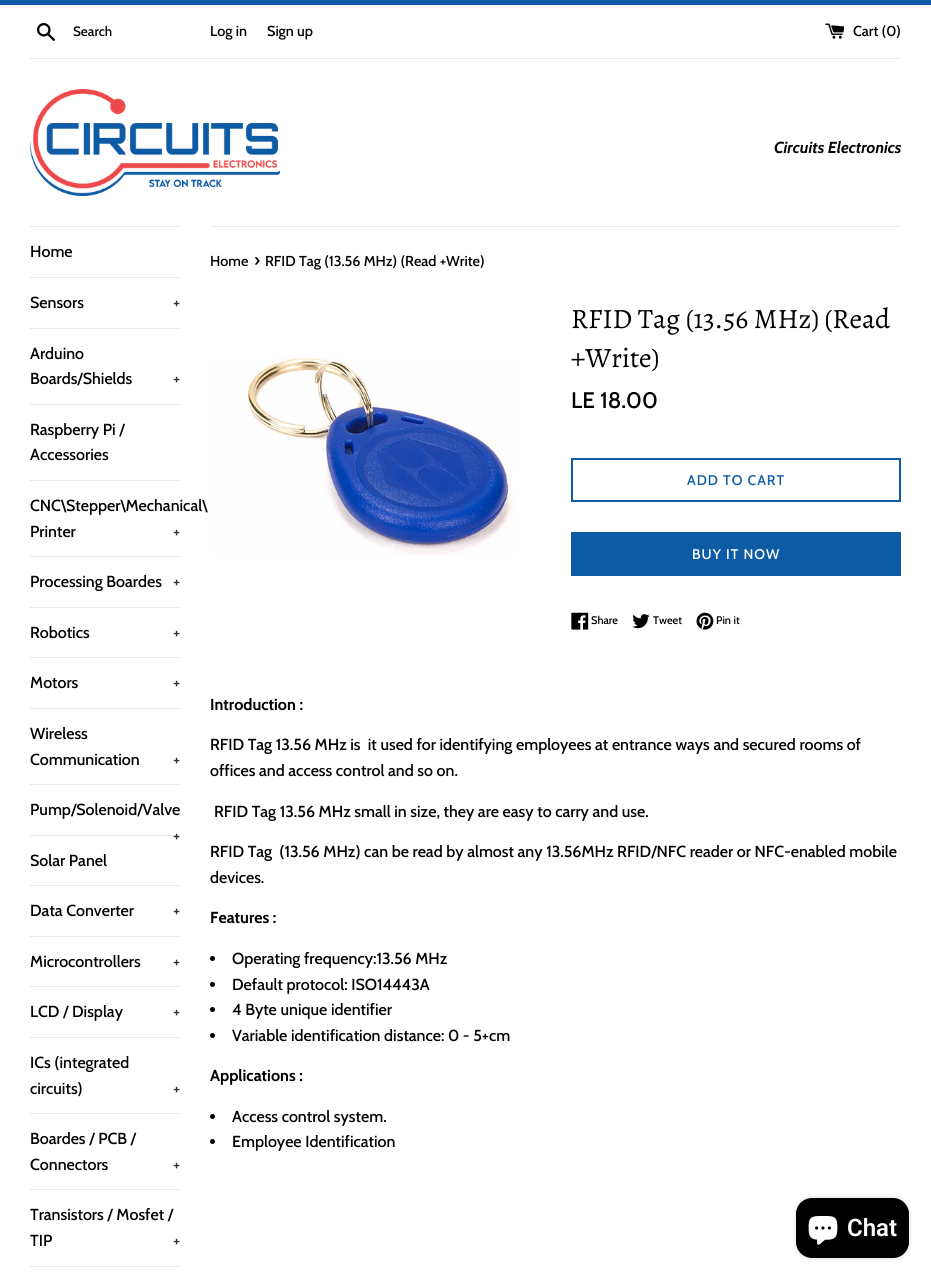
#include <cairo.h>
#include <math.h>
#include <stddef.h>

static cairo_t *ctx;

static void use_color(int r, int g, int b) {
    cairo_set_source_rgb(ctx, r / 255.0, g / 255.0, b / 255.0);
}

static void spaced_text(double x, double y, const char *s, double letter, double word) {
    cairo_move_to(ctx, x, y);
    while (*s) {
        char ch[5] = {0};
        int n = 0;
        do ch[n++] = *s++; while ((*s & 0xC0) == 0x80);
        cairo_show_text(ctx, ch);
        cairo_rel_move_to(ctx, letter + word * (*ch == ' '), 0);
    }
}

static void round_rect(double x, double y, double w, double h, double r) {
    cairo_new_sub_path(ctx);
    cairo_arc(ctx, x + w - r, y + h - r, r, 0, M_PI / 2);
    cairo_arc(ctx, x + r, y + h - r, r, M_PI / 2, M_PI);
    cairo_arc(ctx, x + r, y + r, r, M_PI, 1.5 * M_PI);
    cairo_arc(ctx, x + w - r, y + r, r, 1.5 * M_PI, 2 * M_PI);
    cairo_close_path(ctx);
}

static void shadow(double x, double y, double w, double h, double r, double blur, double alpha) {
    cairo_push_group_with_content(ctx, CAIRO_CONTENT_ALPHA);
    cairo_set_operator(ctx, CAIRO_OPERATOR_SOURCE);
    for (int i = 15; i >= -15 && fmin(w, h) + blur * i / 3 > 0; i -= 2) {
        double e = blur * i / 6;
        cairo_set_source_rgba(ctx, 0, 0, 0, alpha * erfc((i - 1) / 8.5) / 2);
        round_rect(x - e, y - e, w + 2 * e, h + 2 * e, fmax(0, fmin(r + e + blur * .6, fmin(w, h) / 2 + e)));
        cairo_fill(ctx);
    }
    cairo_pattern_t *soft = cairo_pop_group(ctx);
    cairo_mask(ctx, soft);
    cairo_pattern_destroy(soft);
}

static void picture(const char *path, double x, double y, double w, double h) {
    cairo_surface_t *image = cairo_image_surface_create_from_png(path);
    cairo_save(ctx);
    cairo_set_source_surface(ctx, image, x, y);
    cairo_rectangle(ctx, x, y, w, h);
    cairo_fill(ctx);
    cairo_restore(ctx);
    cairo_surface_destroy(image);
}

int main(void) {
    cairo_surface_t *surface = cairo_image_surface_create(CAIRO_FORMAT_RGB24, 931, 1279);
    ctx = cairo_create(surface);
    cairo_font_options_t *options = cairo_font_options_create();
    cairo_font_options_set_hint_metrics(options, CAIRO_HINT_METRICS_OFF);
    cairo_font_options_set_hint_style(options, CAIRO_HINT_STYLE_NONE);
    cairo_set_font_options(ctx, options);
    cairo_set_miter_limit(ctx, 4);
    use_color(255, 255, 255);
    cairo_paint(ctx);
    use_color(13, 91, 165);
    cairo_rectangle(ctx, 0, 0, 931, 5);
    cairo_fill(ctx);
    picture("img1.png", 37, 23, 18, 18);
    cairo_select_font_face(ctx, "Cabin Medium", CAIRO_FONT_SLANT_NORMAL, CAIRO_FONT_WEIGHT_NORMAL);
    cairo_set_font_size(ctx, 13.5);
    use_color(0, 0, 0);
    cairo_move_to(ctx, 73, 36);
    cairo_show_text(ctx, "Search");
    cairo_set_font_size(ctx, 14.4);
    cairo_move_to(ctx, 210, 36);
    cairo_show_text(ctx, "Log in");
    cairo_move_to(ctx, 267, 36);
    cairo_show_text(ctx, "Sign up");
    picture("img2.png", 825, 23, 20, 16);
    cairo_move_to(ctx, 853, 36);
    cairo_show_text(ctx, "Cart (0)");
    use_color(237, 232, 231);
    cairo_rectangle(ctx, 30, 58, 871, 1);
    cairo_fill(ctx);
    picture("img3.png", 30, 89, 250, 107);
    cairo_select_font_face(ctx, "Cabin", CAIRO_FONT_SLANT_ITALIC, CAIRO_FONT_WEIGHT_BOLD);
    cairo_set_font_size(ctx, 16);
    use_color(0, 0, 0);
    cairo_move_to(ctx, 774, 153);
    cairo_show_text(ctx, "Circuits Electronics");
    use_color(237, 232, 231);
    cairo_rectangle(ctx, 30, 226, 150, 1);
    cairo_fill(ctx);
    cairo_rectangle(ctx, 30, 277, 150, 1);
    cairo_fill(ctx);
    cairo_select_font_face(ctx, "Cabin Medium", CAIRO_FONT_SLANT_NORMAL, CAIRO_FONT_WEIGHT_NORMAL);
    use_color(0, 0, 0);
    cairo_move_to(ctx, 30, 257);
    cairo_show_text(ctx, "Home");
    use_color(237, 232, 231);
    cairo_rectangle(ctx, 30, 328, 150, 1);
    cairo_fill(ctx);
    use_color(0, 0, 0);
    cairo_move_to(ctx, 30, 308);
    cairo_show_text(ctx, "Sensors");
    use_color(51, 51, 51);
    cairo_move_to(ctx, 173, 308);
    cairo_show_text(ctx, "+");
    use_color(237, 232, 231);
    cairo_rectangle(ctx, 30, 404, 150, 1);
    cairo_fill(ctx);
    use_color(0, 0, 0);
    cairo_move_to(ctx, 30, 359);
    cairo_show_text(ctx, "Arduino");
    cairo_move_to(ctx, 30, 384);
    cairo_show_text(ctx, "Boards/Shields");
    use_color(51, 51, 51);
    cairo_move_to(ctx, 173, 384);
    cairo_show_text(ctx, "+");
    use_color(237, 232, 231);
    cairo_rectangle(ctx, 30, 480, 150, 1);
    cairo_fill(ctx);
    use_color(0, 0, 0);
    cairo_move_to(ctx, 30, 435);
    cairo_show_text(ctx, "Raspberry Pi /");
    cairo_move_to(ctx, 30, 460);
    cairo_show_text(ctx, "Accessories");
    use_color(237, 232, 231);
    cairo_rectangle(ctx, 30, 556, 150, 1);
    cairo_fill(ctx);
    use_color(0, 0, 0);
    cairo_move_to(ctx, 30, 511);
    cairo_show_text(ctx, "CNC\\Stepper\\Mechanical\\");
    cairo_move_to(ctx, 30, 537);
    cairo_show_text(ctx, "Printer");
    use_color(51, 51, 51);
    cairo_move_to(ctx, 173, 537);
    cairo_show_text(ctx, "+");
    use_color(237, 232, 231);
    cairo_rectangle(ctx, 30, 607, 150, 1);
    cairo_fill(ctx);
    use_color(0, 0, 0);
    cairo_move_to(ctx, 30, 587);
    cairo_show_text(ctx, "Processing Boardes");
    use_color(51, 51, 51);
    cairo_move_to(ctx, 173, 587);
    cairo_show_text(ctx, "+");
    use_color(237, 232, 231);
    cairo_rectangle(ctx, 30, 657, 150, 1);
    cairo_fill(ctx);
    use_color(0, 0, 0);
    cairo_move_to(ctx, 30, 638);
    cairo_show_text(ctx, "Robotics");
    use_color(51, 51, 51);
    cairo_move_to(ctx, 173, 638);
    cairo_show_text(ctx, "+");
    use_color(237, 232, 231);
    cairo_rectangle(ctx, 30, 708, 150, 1);
    cairo_fill(ctx);
    use_color(0, 0, 0);
    cairo_move_to(ctx, 30, 688);
    cairo_show_text(ctx, "Motors");
    use_color(51, 51, 51);
    cairo_move_to(ctx, 173, 688);
    cairo_show_text(ctx, "+");
    use_color(237, 232, 231);
    cairo_rectangle(ctx, 30, 784, 150, 1);
    cairo_fill(ctx);
    use_color(0, 0, 0);
    cairo_move_to(ctx, 30, 739);
    cairo_show_text(ctx, "Wireless");
    cairo_move_to(ctx, 30, 765);
    cairo_show_text(ctx, "Communication");
    use_color(51, 51, 51);
    cairo_move_to(ctx, 173, 765);
    cairo_show_text(ctx, "+");
    use_color(237, 232, 231);
    cairo_rectangle(ctx, 30, 835, 150, 1);
    cairo_fill(ctx);
    use_color(0, 0, 0);
    cairo_move_to(ctx, 30, 815);
    cairo_show_text(ctx, "Pump/Solenoid/Valve");
    use_color(51, 51, 51);
    cairo_move_to(ctx, 173, 841);
    cairo_show_text(ctx, "+");
    use_color(237, 232, 231);
    cairo_rectangle(ctx, 30, 885, 150, 1);
    cairo_fill(ctx);
    use_color(0, 0, 0);
    cairo_move_to(ctx, 30, 866);
    cairo_show_text(ctx, "Solar Panel");
    use_color(237, 232, 231);
    cairo_rectangle(ctx, 30, 936, 150, 1);
    cairo_fill(ctx);
    use_color(0, 0, 0);
    cairo_move_to(ctx, 30, 916);
    cairo_show_text(ctx, "Data Converter");
    use_color(51, 51, 51);
    cairo_move_to(ctx, 173, 916);
    cairo_show_text(ctx, "+");
    use_color(237, 232, 231);
    cairo_rectangle(ctx, 30, 986, 150, 1);
    cairo_fill(ctx);
    use_color(0, 0, 0);
    cairo_move_to(ctx, 30, 967);
    cairo_show_text(ctx, "Microcontrollers");
    use_color(51, 51, 51);
    cairo_move_to(ctx, 173, 967);
    cairo_show_text(ctx, "+");
    use_color(237, 232, 231);
    cairo_rectangle(ctx, 30, 1037, 150, 1);
    cairo_fill(ctx);
    use_color(0, 0, 0);
    cairo_move_to(ctx, 30, 1017);
    cairo_show_text(ctx, "LCD / Display");
    use_color(51, 51, 51);
    cairo_move_to(ctx, 173, 1017);
    cairo_show_text(ctx, "+");
    use_color(237, 232, 231);
    cairo_rectangle(ctx, 30, 1113, 150, 1);
    cairo_fill(ctx);
    use_color(0, 0, 0);
    cairo_move_to(ctx, 30, 1068);
    cairo_show_text(ctx, "ICs (integrated");
    cairo_move_to(ctx, 30, 1094);
    cairo_show_text(ctx, "circuits)");
    use_color(51, 51, 51);
    cairo_move_to(ctx, 173, 1094);
    cairo_show_text(ctx, "+");
    use_color(237, 232, 231);
    cairo_rectangle(ctx, 30, 1189, 150, 1);
    cairo_fill(ctx);
    use_color(0, 0, 0);
    cairo_move_to(ctx, 30, 1144);
    cairo_show_text(ctx, "Boardes / PCB /");
    cairo_move_to(ctx, 30, 1170);
    cairo_show_text(ctx, "Connectors");
    use_color(51, 51, 51);
    cairo_move_to(ctx, 173, 1170);
    cairo_show_text(ctx, "+");
    use_color(237, 232, 231);
    cairo_rectangle(ctx, 30, 1266, 150, 1);
    cairo_fill(ctx);
    use_color(0, 0, 0);
    cairo_move_to(ctx, 30, 1220);
    cairo_show_text(ctx, "Transistors / Mosfet /");
    cairo_move_to(ctx, 30, 1246);
    cairo_show_text(ctx, "TIP");
    use_color(51, 51, 51);
    cairo_move_to(ctx, 173, 1246);
    cairo_show_text(ctx, "+");
    use_color(237, 232, 231);
    cairo_rectangle(ctx, 210, 226, 691, 1);
    cairo_fill(ctx);
    cairo_set_font_size(ctx, 14.4);
    use_color(0, 0, 0);
    cairo_move_to(ctx, 210, 266);
    cairo_show_text(ctx, "Home");
    cairo_set_font_size(ctx, 18);
    cairo_move_to(ctx, 254, 266);
    cairo_show_text(ctx, "›");
    cairo_set_font_size(ctx, 14.4);
    cairo_move_to(ctx, 265, 266);
    cairo_show_text(ctx, "RFID Tag (13.56 MHz) (Read +Write)");
    picture("img4.png", 210, 357, 307, 199);
    cairo_select_font_face(ctx, "Alegreya", CAIRO_FONT_SLANT_NORMAL, CAIRO_FONT_WEIGHT_NORMAL);
    cairo_set_font_size(ctx, 28);
    cairo_move_to(ctx, 571, 328);
    cairo_show_text(ctx, "RFID Tag (13.56 MHz) (Read");
    cairo_move_to(ctx, 571, 367);
    cairo_show_text(ctx, "+Write)");
    cairo_select_font_face(ctx, "Cabin Medium", CAIRO_FONT_SLANT_NORMAL, CAIRO_FONT_WEIGHT_NORMAL);
    cairo_set_font_size(ctx, 22.5);
    cairo_move_to(ctx, 571, 408);
    cairo_show_text(ctx, "LE 18.00");
    cairo_rectangle(ctx, 572, 459, 328, 42);
    use_color(13, 91, 165);
    cairo_stroke(ctx);
    cairo_set_font_size(ctx, 14);
    spaced_text(687, 485, "ADD TO CART", 1, 0);
    cairo_rectangle(ctx, 571, 532, 330, 44);
    cairo_fill(ctx);
    use_color(255, 255, 255);
    spaced_text(692, 559, "BUY IT NOW", 1, 0);
    picture("img5.png", 571, 612, 18, 18);
    cairo_set_font_size(ctx, 11);
    use_color(0, 0, 0);
    cairo_move_to(ctx, 591, 624);
    cairo_show_text(ctx, "Share");
    picture("img6.png", 632, 614, 18, 15);
    cairo_move_to(ctx, 653, 624);
    cairo_show_text(ctx, "Tweet");
    picture("img7.png", 696, 612, 18, 18);
    cairo_move_to(ctx, 716, 624);
    cairo_show_text(ctx, "Pin it");
    cairo_select_font_face(ctx, "Cabin", CAIRO_FONT_SLANT_NORMAL, CAIRO_FONT_WEIGHT_BOLD);
    cairo_set_font_size(ctx, 16);
    cairo_move_to(ctx, 210, 710);
    cairo_show_text(ctx, "Introduction :");
    cairo_select_font_face(ctx, "Cabin Medium", CAIRO_FONT_SLANT_NORMAL, CAIRO_FONT_WEIGHT_NORMAL);
    cairo_move_to(ctx, 210, 750);
    cairo_show_text(ctx, "RFID Tag 13.56 MHz is  it used for identifying employees at entrance ways and secured rooms of");
    cairo_move_to(ctx, 210, 776);
    cairo_show_text(ctx, "offices and access control and so on.");
    cairo_move_to(ctx, 214, 817);
    cairo_show_text(ctx, "RFID Tag 13.56 MHz small in size, they are easy to carry and use.");
    cairo_move_to(ctx, 210, 857);
    cairo_show_text(ctx, "RFID Tag  (13.56 MHz) can be read by almost any 13.56MHz RFID/NFC reader or NFC-enabled mobile");
    cairo_move_to(ctx, 210, 883);
    cairo_show_text(ctx, "devices.");
    cairo_select_font_face(ctx, "Cabin", CAIRO_FONT_SLANT_NORMAL, CAIRO_FONT_WEIGHT_BOLD);
    cairo_move_to(ctx, 210, 923);
    cairo_show_text(ctx, "Features :");
    cairo_new_path(ctx);
    cairo_arc(ctx, 212.5, 958.5, 2.5, 0, 2 * M_PI);
    cairo_fill(ctx);
    cairo_select_font_face(ctx, "Cabin Medium", CAIRO_FONT_SLANT_NORMAL, CAIRO_FONT_WEIGHT_NORMAL);
    cairo_move_to(ctx, 232, 964);
    cairo_show_text(ctx, "Operating frequency:13.56 MHz");
    cairo_new_path(ctx);
    cairo_arc(ctx, 212.5, 984.5, 2.5, 0, 2 * M_PI);
    cairo_fill(ctx);
    cairo_move_to(ctx, 232, 990);
    cairo_show_text(ctx, "Default protocol: ISO14443A");
    cairo_new_path(ctx);
    cairo_arc(ctx, 212.5, 1009.5, 2.5, 0, 2 * M_PI);
    cairo_fill(ctx);
    cairo_move_to(ctx, 232, 1015);
    cairo_show_text(ctx, "4 Byte unique identifier");
    cairo_new_path(ctx);
    cairo_arc(ctx, 212.5, 1035.5, 2.5, 0, 2 * M_PI);
    cairo_fill(ctx);
    cairo_move_to(ctx, 232, 1041);
    cairo_show_text(ctx, "Variable identification distance: 0 - 5+cm");
    cairo_select_font_face(ctx, "Cabin", CAIRO_FONT_SLANT_NORMAL, CAIRO_FONT_WEIGHT_BOLD);
    cairo_move_to(ctx, 210, 1081);
    cairo_show_text(ctx, "Applications :");
    cairo_new_path(ctx);
    cairo_arc(ctx, 212.5, 1116.5, 2.5, 0, 2 * M_PI);
    cairo_fill(ctx);
    cairo_select_font_face(ctx, "Cabin Medium", CAIRO_FONT_SLANT_NORMAL, CAIRO_FONT_WEIGHT_NORMAL);
    cairo_move_to(ctx, 232, 1122);
    cairo_show_text(ctx, "Access control system.");
    cairo_new_path(ctx);
    cairo_arc(ctx, 212.5, 1141.5, 2.5, 0, 2 * M_PI);
    cairo_fill(ctx);
    cairo_move_to(ctx, 232, 1147);
    cairo_show_text(ctx, "Employee Identification");
    use_color(0, 0, 0);
    shadow(796, 1198, 113, 60, 16, 2.5, 0.15);
    use_color(0, 0, 0);
    round_rect(796, 1198, 113, 60, 16);
    cairo_fill(ctx);
    picture("img8.png", 808, 1216, 30, 29);
    cairo_select_font_face(ctx, "Roboto SemiBold", CAIRO_FONT_SLANT_NORMAL, CAIRO_FONT_WEIGHT_NORMAL);
    cairo_set_font_size(ctx, 24);
    use_color(255, 255, 255);
    cairo_move_to(ctx, 847, 1236);
    cairo_show_text(ctx, "Chat");
    cairo_surface_write_to_png(surface, "result.png");
    cairo_font_options_destroy(options);
    cairo_destroy(ctx);
    cairo_surface_destroy(surface);
    return 0;
}
